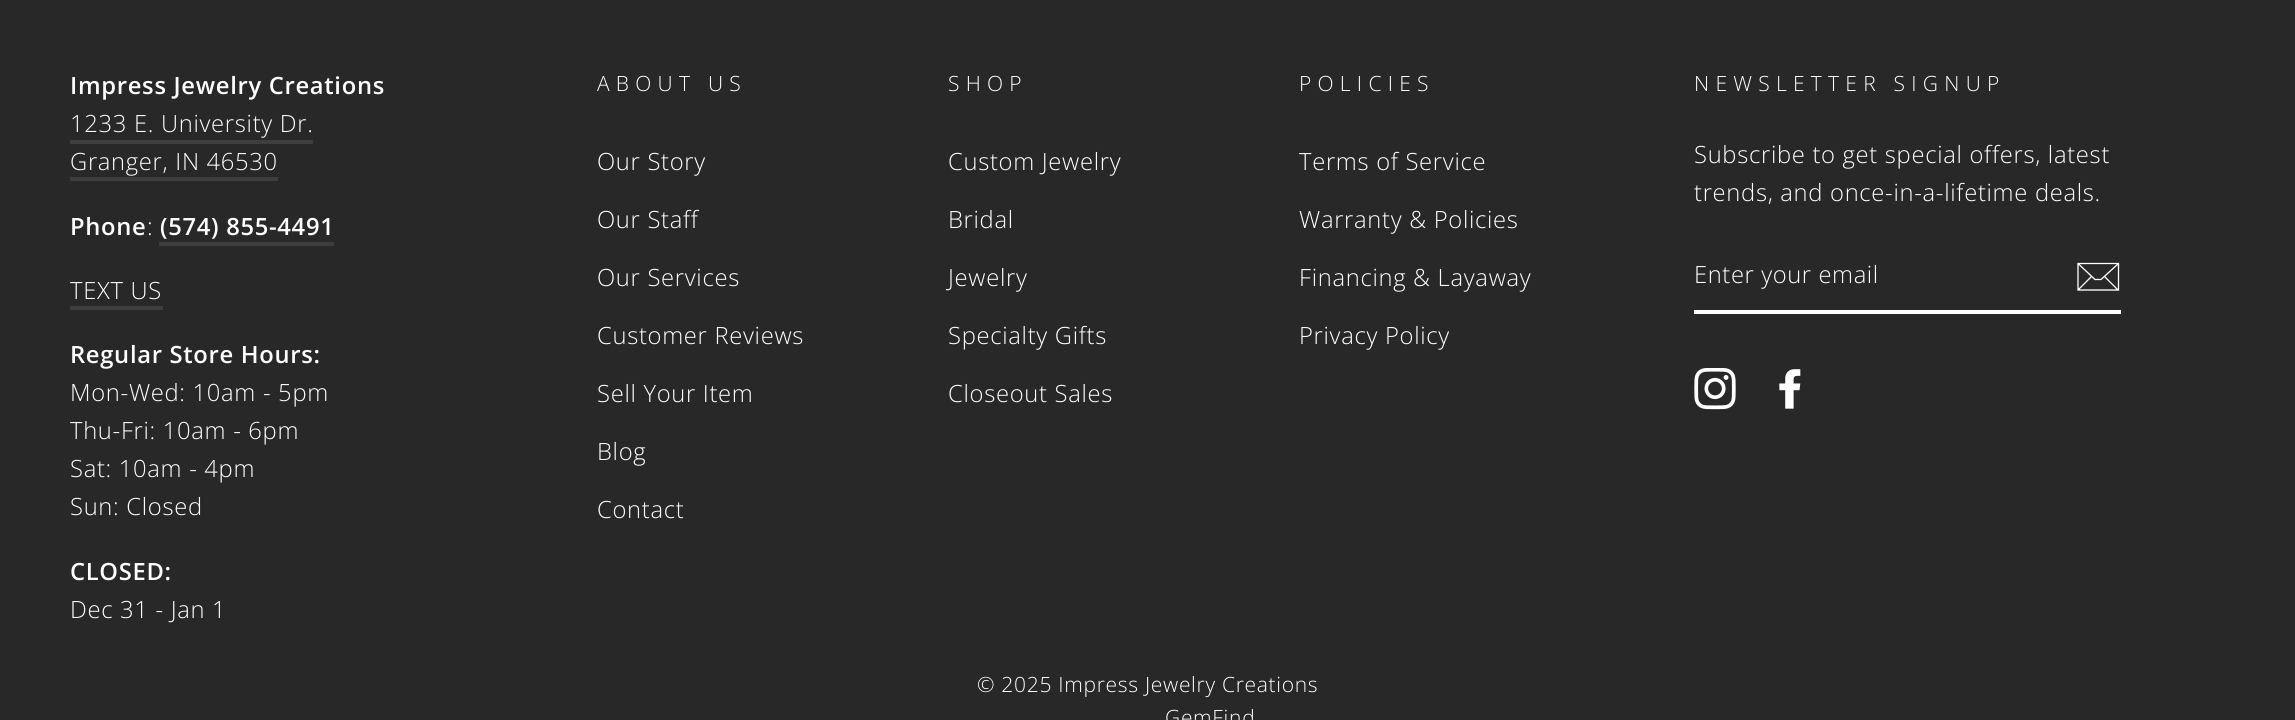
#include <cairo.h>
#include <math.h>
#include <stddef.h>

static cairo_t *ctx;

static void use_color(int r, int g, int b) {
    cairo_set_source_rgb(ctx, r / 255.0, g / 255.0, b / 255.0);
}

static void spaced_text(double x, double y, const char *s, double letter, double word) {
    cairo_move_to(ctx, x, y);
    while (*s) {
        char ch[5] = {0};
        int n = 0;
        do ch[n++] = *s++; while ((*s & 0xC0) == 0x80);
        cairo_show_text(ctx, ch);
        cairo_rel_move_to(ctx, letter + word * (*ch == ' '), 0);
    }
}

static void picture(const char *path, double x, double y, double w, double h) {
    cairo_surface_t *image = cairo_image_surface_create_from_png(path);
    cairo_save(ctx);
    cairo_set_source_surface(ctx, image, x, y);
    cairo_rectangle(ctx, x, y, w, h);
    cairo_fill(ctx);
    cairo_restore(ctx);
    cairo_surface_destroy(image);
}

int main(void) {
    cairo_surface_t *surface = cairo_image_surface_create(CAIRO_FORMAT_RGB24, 2295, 720);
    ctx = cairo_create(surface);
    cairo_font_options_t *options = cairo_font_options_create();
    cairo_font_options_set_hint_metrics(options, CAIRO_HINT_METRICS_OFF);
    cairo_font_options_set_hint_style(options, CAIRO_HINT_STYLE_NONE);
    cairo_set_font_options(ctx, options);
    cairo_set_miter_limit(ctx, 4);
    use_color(41, 40, 40);
    cairo_paint(ctx);
    cairo_select_font_face(ctx, "Open Sans SemiBold", CAIRO_FONT_SLANT_NORMAL, CAIRO_FONT_WEIGHT_NORMAL);
    cairo_set_font_size(ctx, 23.75);
    use_color(255, 255, 255);
    spaced_text(70, 94, "Impress Jewelry Creations", 0.7, 0);
    cairo_select_font_face(ctx, "Open Sans Light", CAIRO_FONT_SLANT_NORMAL, CAIRO_FONT_WEIGHT_NORMAL);
    spaced_text(70, 132, "1233 E. University Dr.", 0.7, 0);
    use_color(62, 62, 62);
    cairo_rectangle(ctx, 70, 140, 243, 4);
    cairo_fill(ctx);
    use_color(255, 255, 255);
    spaced_text(70, 170, "Granger, IN 46530", 0.7, 0);
    use_color(62, 62, 62);
    cairo_rectangle(ctx, 70, 177, 208, 4);
    cairo_fill(ctx);
    cairo_select_font_face(ctx, "Open Sans SemiBold", CAIRO_FONT_SLANT_NORMAL, CAIRO_FONT_WEIGHT_NORMAL);
    use_color(255, 255, 255);
    spaced_text(70, 235, "Phone", 0.7, 0);
    cairo_select_font_face(ctx, "Open Sans Light", CAIRO_FONT_SLANT_NORMAL, CAIRO_FONT_WEIGHT_NORMAL);
    spaced_text(147, 235, ":", 0.7, 0);
    cairo_select_font_face(ctx, "Open Sans SemiBold", CAIRO_FONT_SLANT_NORMAL, CAIRO_FONT_WEIGHT_NORMAL);
    spaced_text(160, 235, "(574) 855-4491", 0.7, 0);
    use_color(62, 62, 62);
    cairo_rectangle(ctx, 159, 242, 175, 4);
    cairo_fill(ctx);
    cairo_select_font_face(ctx, "Open Sans Light", CAIRO_FONT_SLANT_NORMAL, CAIRO_FONT_WEIGHT_NORMAL);
    use_color(255, 255, 255);
    spaced_text(70, 299, "TEXT US", 0.7, 0);
    use_color(62, 62, 62);
    cairo_rectangle(ctx, 70, 306, 93, 4);
    cairo_fill(ctx);
    cairo_select_font_face(ctx, "Open Sans SemiBold", CAIRO_FONT_SLANT_NORMAL, CAIRO_FONT_WEIGHT_NORMAL);
    use_color(255, 255, 255);
    spaced_text(70, 363, "Regular Store Hours:", 0.7, 0);
    cairo_select_font_face(ctx, "Open Sans Light", CAIRO_FONT_SLANT_NORMAL, CAIRO_FONT_WEIGHT_NORMAL);
    spaced_text(70, 401, "Mon-Wed: 10am - 5pm", 0.7, 0);
    spaced_text(70, 439, "Thu-Fri: 10am - 6pm", 0.7, 0);
    spaced_text(70, 477, "Sat: 10am - 4pm", 0.7, 0);
    spaced_text(70, 515, "Sun: Closed", 0.7, 0);
    cairo_select_font_face(ctx, "Open Sans SemiBold", CAIRO_FONT_SLANT_NORMAL, CAIRO_FONT_WEIGHT_NORMAL);
    spaced_text(70, 580, "CLOSED:", 0.7, 0);
    cairo_select_font_face(ctx, "Open Sans Light", CAIRO_FONT_SLANT_NORMAL, CAIRO_FONT_WEIGHT_NORMAL);
    spaced_text(70, 618, "Dec 31 - Jan 1", 0.7, 0);
    cairo_set_font_size(ctx, 21);
    spaced_text(597, 91, "ABOUT US", 6.25, 0);
    cairo_set_font_size(ctx, 23.75);
    spaced_text(597, 170, "Our Story", 0.7, 0);
    spaced_text(597, 228, "Our Staff", 0.7, 0);
    spaced_text(597, 286, "Our Services", 0.7, 0);
    spaced_text(597, 344, "Customer Reviews", 0.7, 0);
    spaced_text(597, 402, "Sell Your Item", 0.7, 0);
    spaced_text(597, 460, "Blog", 0.7, 0);
    spaced_text(597, 518, "Contact", 0.7, 0);
    cairo_set_font_size(ctx, 21);
    spaced_text(948, 91, "SHOP", 6.25, 0);
    cairo_set_font_size(ctx, 23.75);
    spaced_text(948, 170, "Custom Jewelry", 0.7, 0);
    spaced_text(948, 228, "Bridal", 0.7, 0);
    spaced_text(948, 286, "Jewelry", 0.7, 0);
    spaced_text(948, 344, "Specialty Gifts", 0.7, 0);
    spaced_text(948, 402, "Closeout Sales", 0.7, 0);
    cairo_set_font_size(ctx, 21);
    spaced_text(1299, 91, "POLICIES", 6.25, 0);
    cairo_set_font_size(ctx, 23.75);
    spaced_text(1299, 170, "Terms of Service", 0.7, 0);
    spaced_text(1299, 228, "Warranty & Policies", 0.7, 0);
    spaced_text(1299, 286, "Financing & Layaway", 0.7, 0);
    spaced_text(1299, 344, "Privacy Policy", 0.7, 0);
    cairo_set_font_size(ctx, 21);
    spaced_text(1694, 91, "NEWSLETTER SIGNUP", 6.25, 0);
    cairo_set_font_size(ctx, 23.75);
    spaced_text(1694, 163, "Subscribe to get special offers, latest", 0.7, 0);
    spaced_text(1694, 201, "trends, and once-in-a-lifetime deals.", 0.7, 0);
    cairo_rectangle(ctx, 1694, 310, 427, 4);
    cairo_fill(ctx);
    spaced_text(1694, 283, "Enter your email", 0.6, 0);
    cairo_new_path(ctx);
    cairo_move_to(ctx, 2118.5, 290);
    cairo_line_to(ctx, 2078, 290);
    cairo_line_to(ctx, 2078, 263.5);
    cairo_line_to(ctx, 2118.5, 263.5);
    cairo_close_path(ctx);
    cairo_move_to(ctx, 2078, 263.5);
    cairo_line_to(ctx, 2095, 279.5);
    cairo_line_to(ctx, 2101, 279.5);
    cairo_line_to(ctx, 2118.5, 263.5);
    cairo_move_to(ctx, 2091.5, 276.5);
    cairo_line_to(ctx, 2078.5, 289.5);
    cairo_move_to(ctx, 2118, 290);
    cairo_line_to(ctx, 2104.5, 276.5);
    cairo_set_line_width(ctx, 1.3);
    cairo_stroke(ctx);
    picture("img1.png", 1694, 368, 42, 42);
    picture("img2.png", 1779, 369, 22, 40);
    cairo_set_font_size(ctx, 21);
    spaced_text(977, 692, "© 2025 Impress Jewelry Creations", 0.7, 0);
    spaced_text(1165, 725, "GemFind", 0.7, 0);
    cairo_surface_write_to_png(surface, "result.png");
    cairo_font_options_destroy(options);
    cairo_destroy(ctx);
    cairo_surface_destroy(surface);
    return 0;
}
